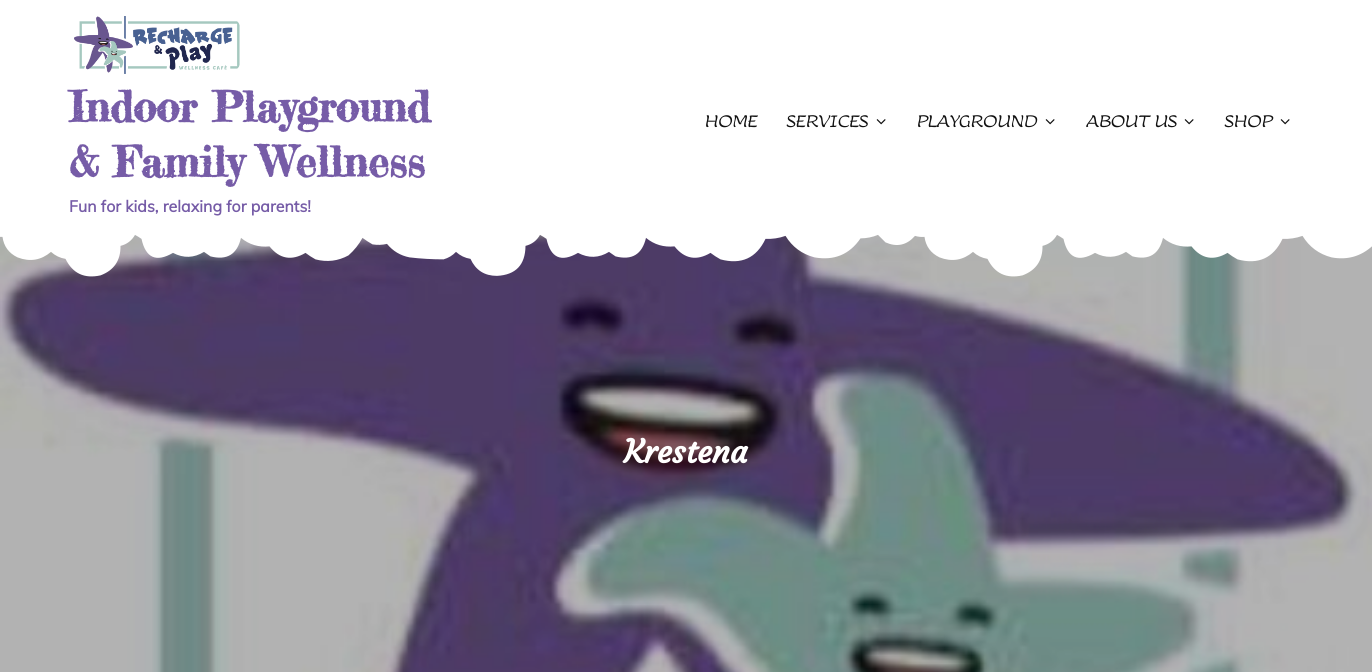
#include <cairo.h>
#include <math.h>
#include <stddef.h>

static cairo_t *ctx;

static void use_color(int r, int g, int b) {
    cairo_set_source_rgb(ctx, r / 255.0, g / 255.0, b / 255.0);
}

static void picture(const char *path, double x, double y, double w, double h) {
    cairo_surface_t *image = cairo_image_surface_create_from_png(path);
    cairo_save(ctx);
    cairo_set_source_surface(ctx, image, x, y);
    cairo_rectangle(ctx, x, y, w, h);
    cairo_fill(ctx);
    cairo_restore(ctx);
    cairo_surface_destroy(image);
}

int main(void) {
    cairo_surface_t *surface = cairo_image_surface_create(CAIRO_FORMAT_RGB24, 1372, 672);
    ctx = cairo_create(surface);
    cairo_font_options_t *options = cairo_font_options_create();
    cairo_font_options_set_hint_metrics(options, CAIRO_HINT_METRICS_OFF);
    cairo_font_options_set_hint_style(options, CAIRO_HINT_STYLE_NONE);
    cairo_set_font_options(ctx, options);
    cairo_set_miter_limit(ctx, 4);
    use_color(255, 255, 255);
    cairo_paint(ctx);
    picture("img1.png", 74, 16, 166, 58);
    cairo_select_font_face(ctx, "Fredericka the Great", CAIRO_FONT_SLANT_NORMAL, CAIRO_FONT_WEIGHT_BOLD);
    cairo_set_font_size(ctx, 42);
    use_color(118, 92, 167);
    cairo_move_to(ctx, 69, 122);
    cairo_show_text(ctx, "Indoor Playground");
    cairo_move_to(ctx, 69, 177);
    cairo_show_text(ctx, "& Family Wellness");
    cairo_select_font_face(ctx, "Muli", CAIRO_FONT_SLANT_NORMAL, CAIRO_FONT_WEIGHT_BOLD);
    cairo_set_font_size(ctx, 16);
    cairo_move_to(ctx, 69, 212);
    cairo_show_text(ctx, "Fun for kids, relaxing for parents!");
    cairo_select_font_face(ctx, "Lumanosimo", CAIRO_FONT_SLANT_NORMAL, CAIRO_FONT_WEIGHT_NORMAL);
    use_color(17, 17, 17);
    cairo_move_to(ctx, 704, 127);
    cairo_show_text(ctx, "HOME");
    cairo_move_to(ctx, 786, 127);
    cairo_show_text(ctx, "SERVICES");
    picture("img2.png", 876, 119, 10, 6);
    cairo_move_to(ctx, 916, 127);
    cairo_show_text(ctx, "PLAYGROUND");
    picture("img2.png", 1045, 119, 10, 6);
    cairo_move_to(ctx, 1086, 127);
    cairo_show_text(ctx, "ABOUT US");
    picture("img2.png", 1184, 119, 10, 6);
    cairo_move_to(ctx, 1224, 127);
    cairo_show_text(ctx, "SHOP");
    picture("img2.png", 1280, 119, 10, 6);
    picture("img4.png", 0, 234, 1372, 438);
    picture("img3.png", 0, 233, 1372, 44);
    cairo_select_font_face(ctx, "Courgette", CAIRO_FONT_SLANT_NORMAL, CAIRO_FONT_WEIGHT_BOLD);
    cairo_set_font_size(ctx, 32);
    use_color(255, 255, 255);
    cairo_move_to(ctx, 624, 463);
    cairo_show_text(ctx, "Krestena");
    cairo_surface_write_to_png(surface, "result.png");
    cairo_font_options_destroy(options);
    cairo_destroy(ctx);
    cairo_surface_destroy(surface);
    return 0;
}
